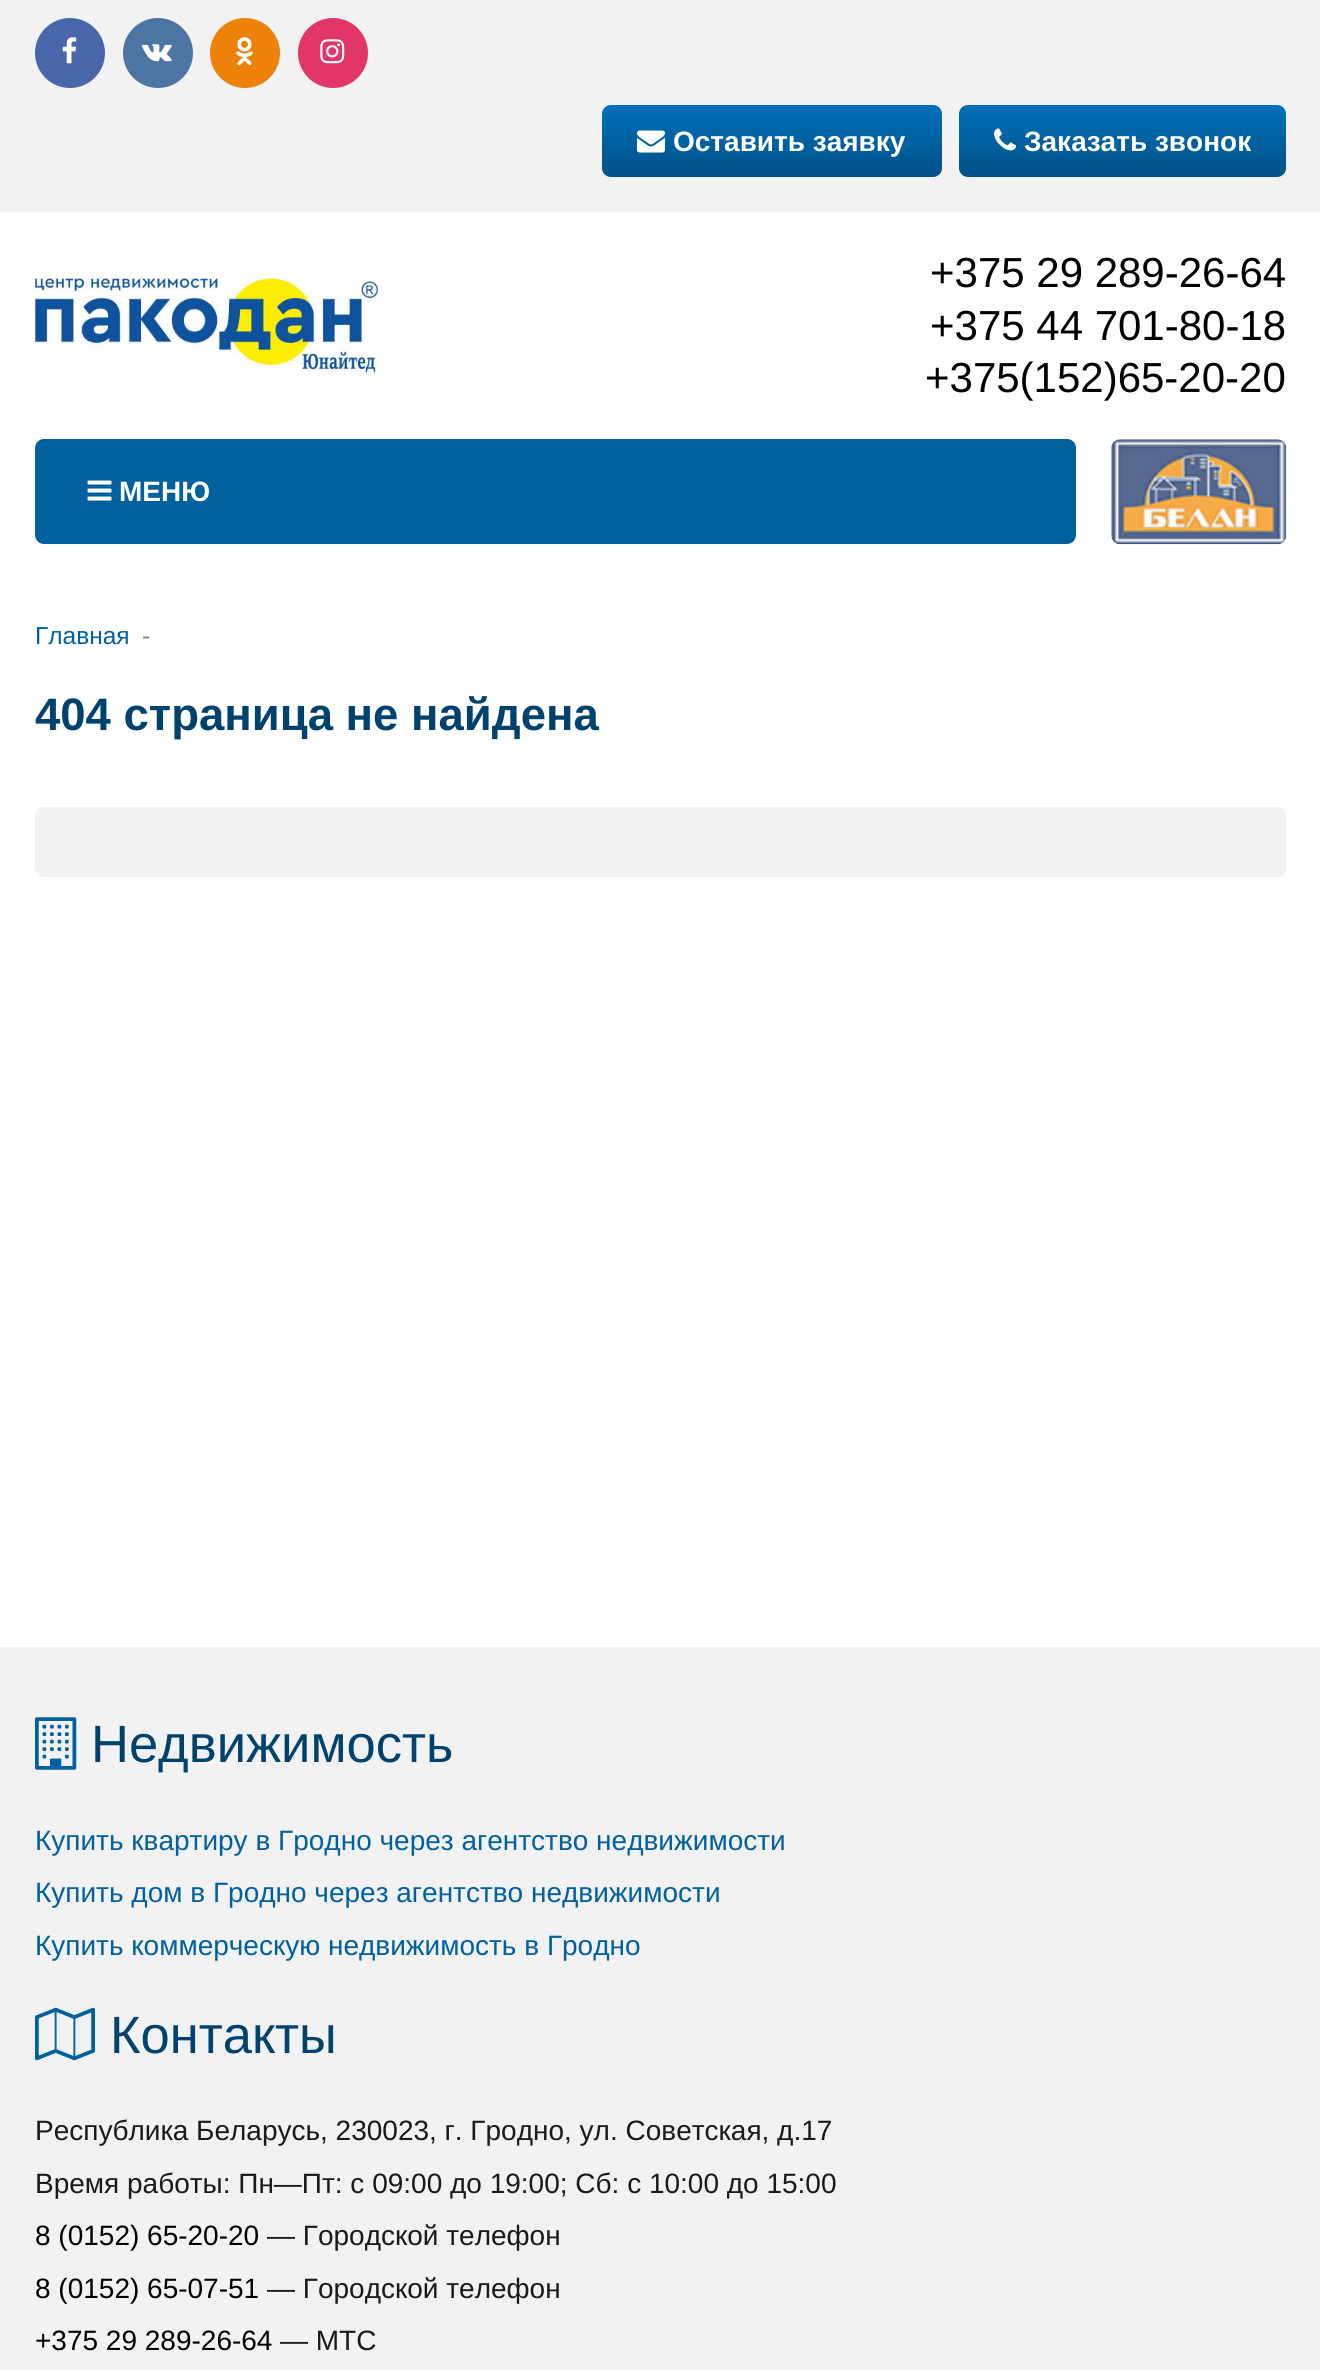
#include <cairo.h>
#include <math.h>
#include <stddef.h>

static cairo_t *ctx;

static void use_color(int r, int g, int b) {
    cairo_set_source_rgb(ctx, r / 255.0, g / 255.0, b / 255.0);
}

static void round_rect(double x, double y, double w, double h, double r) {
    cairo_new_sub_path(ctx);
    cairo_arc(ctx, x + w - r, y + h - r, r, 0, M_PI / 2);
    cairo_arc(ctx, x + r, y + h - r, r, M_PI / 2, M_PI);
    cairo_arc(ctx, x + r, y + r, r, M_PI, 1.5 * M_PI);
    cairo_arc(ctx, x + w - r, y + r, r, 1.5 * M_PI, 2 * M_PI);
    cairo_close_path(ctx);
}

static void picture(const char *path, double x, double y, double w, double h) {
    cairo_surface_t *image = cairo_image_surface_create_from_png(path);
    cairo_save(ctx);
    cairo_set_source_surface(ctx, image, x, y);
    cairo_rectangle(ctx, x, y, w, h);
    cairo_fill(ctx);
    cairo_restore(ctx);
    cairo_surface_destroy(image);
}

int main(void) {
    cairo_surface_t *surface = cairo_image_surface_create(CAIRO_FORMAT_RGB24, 1320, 2370);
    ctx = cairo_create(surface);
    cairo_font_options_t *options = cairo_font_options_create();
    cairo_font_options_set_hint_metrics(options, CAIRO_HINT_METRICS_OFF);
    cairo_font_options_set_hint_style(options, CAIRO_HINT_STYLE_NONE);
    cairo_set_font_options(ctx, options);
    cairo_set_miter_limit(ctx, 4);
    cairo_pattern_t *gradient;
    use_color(255, 255, 255);
    cairo_paint(ctx);
    use_color(242, 242, 242);
    cairo_rectangle(ctx, 0, 0, 1320, 212);
    cairo_fill(ctx);
    use_color(72, 103, 170);
    cairo_arc(ctx, 70, 53, 35, 0, 2 * M_PI);
    cairo_fill(ctx);
    picture("img1.png", 62, 37, 15, 27);
    use_color(76, 117, 163);
    cairo_arc(ctx, 158, 53, 35, 0, 2 * M_PI);
    cairo_fill(ctx);
    picture("img2.png", 141, 44, 31, 18);
    use_color(238, 130, 8);
    cairo_arc(ctx, 245, 53, 35, 0, 2 * M_PI);
    cairo_fill(ctx);
    picture("img3.png", 236, 37, 17, 29);
    use_color(226, 54, 102);
    cairo_arc(ctx, 333, 53, 35, 0, 2 * M_PI);
    cairo_fill(ctx);
    picture("img4.png", 320, 39, 25, 25);
    gradient = cairo_pattern_create_linear(772, 177, 772, 105);
    cairo_pattern_add_color_stop_rgba(gradient, 0, 0, 0.318, 0.529, 1);
    cairo_pattern_add_color_stop_rgba(gradient, 1, 0, 0.439, 0.729, 1);
    cairo_set_source(ctx, gradient);
    cairo_pattern_destroy(gradient);
    round_rect(602, 105, 340, 72, 9);
    cairo_fill(ctx);
    picture("img5.png", 637, 130, 28, 23);
    cairo_select_font_face(ctx, "Liberation Sans", CAIRO_FONT_SLANT_NORMAL, CAIRO_FONT_WEIGHT_BOLD);
    cairo_set_font_size(ctx, 28);
    use_color(255, 255, 255);
    cairo_move_to(ctx, 673, 151);
    cairo_show_text(ctx, "Оставить заявку");
    gradient = cairo_pattern_create_linear(1123, 177, 1123, 105);
    cairo_pattern_add_color_stop_rgba(gradient, 0, 0, 0.318, 0.529, 1);
    cairo_pattern_add_color_stop_rgba(gradient, 1, 0, 0.439, 0.729, 1);
    cairo_set_source(ctx, gradient);
    cairo_pattern_destroy(gradient);
    round_rect(959, 105, 327, 72, 9);
    cairo_fill(ctx);
    picture("img6.png", 994, 128, 22, 23);
    use_color(255, 255, 255);
    cairo_move_to(ctx, 1024, 151);
    cairo_show_text(ctx, "Заказать звонок");
    picture("img7.png", 35, 278, 343, 95);
    cairo_select_font_face(ctx, "Liberation Sans", CAIRO_FONT_SLANT_NORMAL, CAIRO_FONT_WEIGHT_NORMAL);
    cairo_set_font_size(ctx, 42);
    use_color(0, 0, 0);
    cairo_move_to(ctx, 930, 287);
    cairo_show_text(ctx, "+375 29 289-26-64");
    cairo_move_to(ctx, 930, 340);
    cairo_show_text(ctx, "+375 44 701-80-18");
    cairo_move_to(ctx, 925, 392);
    cairo_show_text(ctx, "+375(152)65-20-20");
    use_color(0, 96, 160);
    round_rect(35, 439, 1041, 105, 9);
    cairo_fill(ctx);
    picture("img8.png", 87, 480, 25, 21);
    cairo_select_font_face(ctx, "Liberation Sans", CAIRO_FONT_SLANT_NORMAL, CAIRO_FONT_WEIGHT_BOLD);
    cairo_set_font_size(ctx, 28);
    use_color(255, 255, 255);
    cairo_move_to(ctx, 119, 501);
    cairo_show_text(ctx, "МЕНЮ");
    picture("img9.png", 1111, 439, 176, 106);
    cairo_select_font_face(ctx, "Liberation Sans", CAIRO_FONT_SLANT_NORMAL, CAIRO_FONT_WEIGHT_NORMAL);
    cairo_set_font_size(ctx, 24.5);
    use_color(0, 96, 160);
    cairo_move_to(ctx, 35, 644);
    cairo_show_text(ctx, "Главная");
    use_color(128, 128, 128);
    cairo_move_to(ctx, 142, 644);
    cairo_show_text(ctx, "-");
    cairo_select_font_face(ctx, "Liberation Sans", CAIRO_FONT_SLANT_NORMAL, CAIRO_FONT_WEIGHT_BOLD);
    cairo_set_font_size(ctx, 45.5);
    use_color(0, 66, 110);
    cairo_move_to(ctx, 35, 730);
    cairo_show_text(ctx, "404 страница не найдена");
    use_color(242, 242, 242);
    round_rect(35, 807, 1251, 70, 9);
    cairo_fill(ctx);
    cairo_rectangle(ctx, 0, 1647, 1320, 723);
    cairo_fill(ctx);
    picture("img10.png", 35, 1717, 42, 53);
    cairo_select_font_face(ctx, "Liberation Sans", CAIRO_FONT_SLANT_NORMAL, CAIRO_FONT_WEIGHT_NORMAL);
    cairo_set_font_size(ctx, 52.5);
    use_color(0, 66, 110);
    cairo_move_to(ctx, 91, 1762);
    cairo_show_text(ctx, "Недвижимость");
    cairo_set_font_size(ctx, 28);
    use_color(0, 96, 160);
    cairo_move_to(ctx, 35, 1850);
    cairo_show_text(ctx, "Купить квартиру в Гродно через агентство недвижимости");
    cairo_move_to(ctx, 35, 1902);
    cairo_show_text(ctx, "Купить дом в Гродно через агентство недвижимости");
    cairo_move_to(ctx, 35, 1955);
    cairo_show_text(ctx, "Купить коммерческую недвижимость в Гродно");
    picture("img11.png", 35, 2007, 60, 54);
    cairo_set_font_size(ctx, 52.5);
    use_color(0, 66, 110);
    cairo_move_to(ctx, 110, 2053);
    cairo_show_text(ctx, "Контакты");
    cairo_set_font_size(ctx, 28);
    use_color(26, 26, 26);
    cairo_move_to(ctx, 35, 2140);
    cairo_show_text(ctx, "Республика Беларусь, 230023, г. Гродно, ул. Советская, д.17");
    cairo_move_to(ctx, 35, 2193);
    cairo_show_text(ctx, "Время работы: Пн—Пт: c 09:00 до 19:00; Сб: c 10:00 до 15:00");
    use_color(0, 0, 0);
    cairo_move_to(ctx, 35, 2245);
    cairo_show_text(ctx, "8 (0152) 65-20-20");
    use_color(26, 26, 26);
    cairo_move_to(ctx, 267, 2245);
    cairo_show_text(ctx, "— Городской телефон");
    use_color(0, 0, 0);
    cairo_move_to(ctx, 35, 2298);
    cairo_show_text(ctx, "8 (0152) 65-07-51");
    use_color(26, 26, 26);
    cairo_move_to(ctx, 267, 2298);
    cairo_show_text(ctx, "— Городской телефон");
    use_color(0, 0, 0);
    cairo_move_to(ctx, 35, 2350);
    cairo_show_text(ctx, "+375 29 289-26-64");
    use_color(26, 26, 26);
    cairo_move_to(ctx, 280, 2350);
    cairo_show_text(ctx, "— МТС");
    cairo_surface_write_to_png(surface, "result.png");
    cairo_font_options_destroy(options);
    cairo_destroy(ctx);
    cairo_surface_destroy(surface);
    return 0;
}
